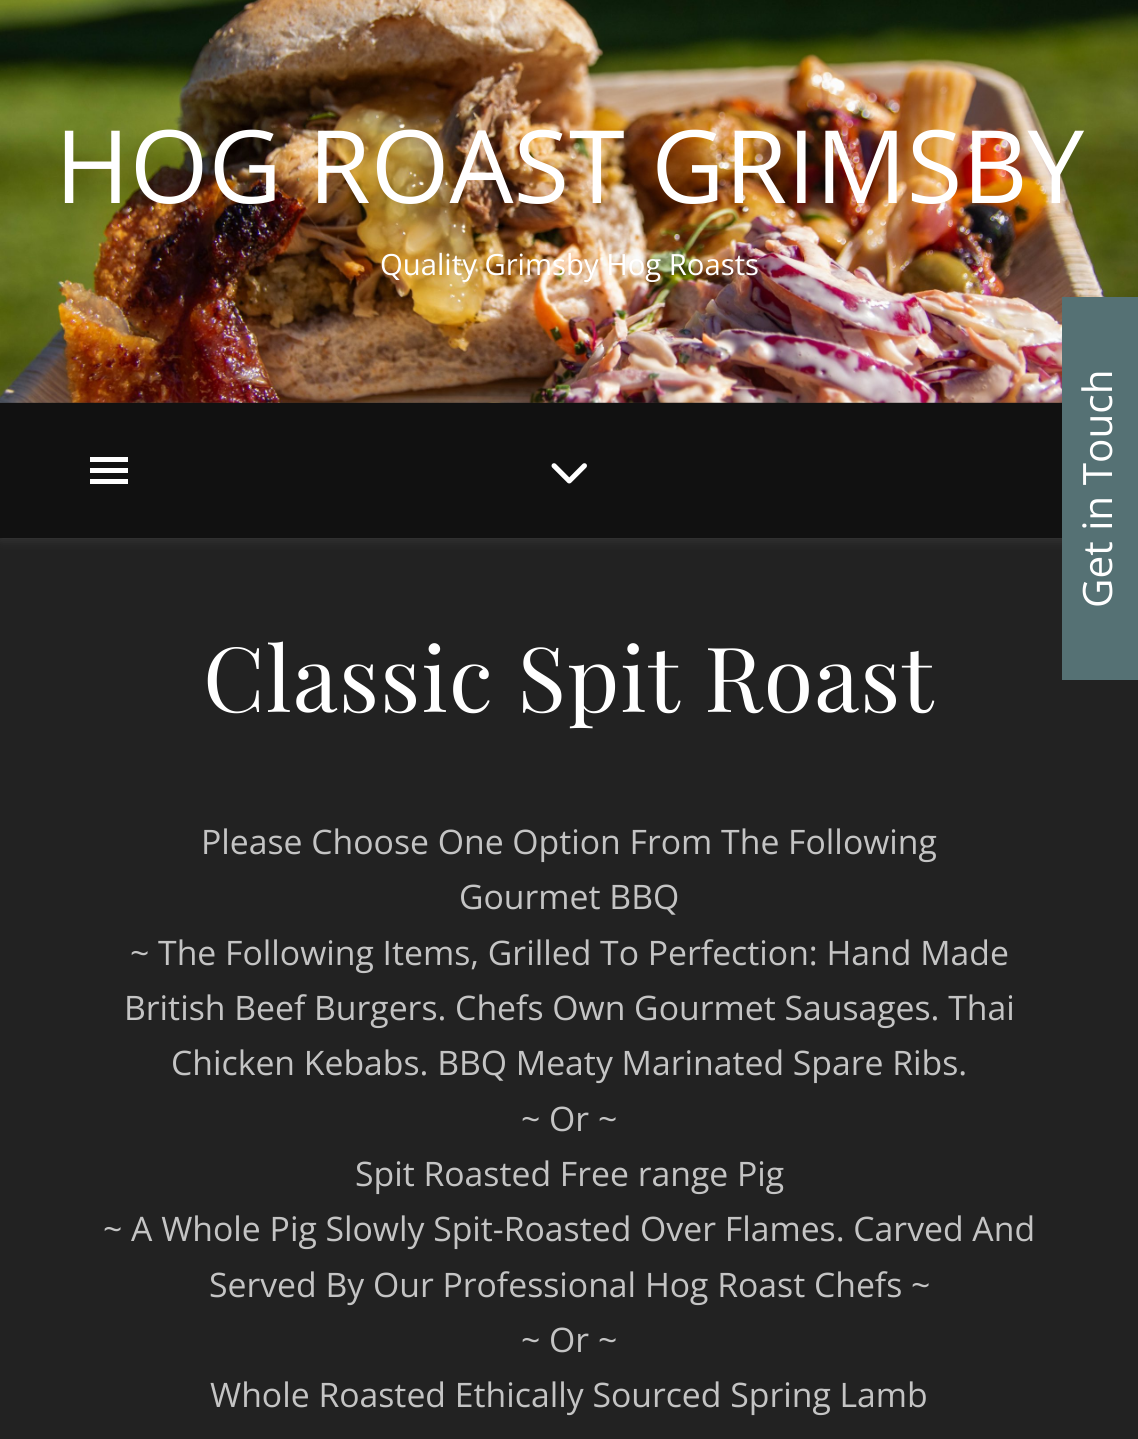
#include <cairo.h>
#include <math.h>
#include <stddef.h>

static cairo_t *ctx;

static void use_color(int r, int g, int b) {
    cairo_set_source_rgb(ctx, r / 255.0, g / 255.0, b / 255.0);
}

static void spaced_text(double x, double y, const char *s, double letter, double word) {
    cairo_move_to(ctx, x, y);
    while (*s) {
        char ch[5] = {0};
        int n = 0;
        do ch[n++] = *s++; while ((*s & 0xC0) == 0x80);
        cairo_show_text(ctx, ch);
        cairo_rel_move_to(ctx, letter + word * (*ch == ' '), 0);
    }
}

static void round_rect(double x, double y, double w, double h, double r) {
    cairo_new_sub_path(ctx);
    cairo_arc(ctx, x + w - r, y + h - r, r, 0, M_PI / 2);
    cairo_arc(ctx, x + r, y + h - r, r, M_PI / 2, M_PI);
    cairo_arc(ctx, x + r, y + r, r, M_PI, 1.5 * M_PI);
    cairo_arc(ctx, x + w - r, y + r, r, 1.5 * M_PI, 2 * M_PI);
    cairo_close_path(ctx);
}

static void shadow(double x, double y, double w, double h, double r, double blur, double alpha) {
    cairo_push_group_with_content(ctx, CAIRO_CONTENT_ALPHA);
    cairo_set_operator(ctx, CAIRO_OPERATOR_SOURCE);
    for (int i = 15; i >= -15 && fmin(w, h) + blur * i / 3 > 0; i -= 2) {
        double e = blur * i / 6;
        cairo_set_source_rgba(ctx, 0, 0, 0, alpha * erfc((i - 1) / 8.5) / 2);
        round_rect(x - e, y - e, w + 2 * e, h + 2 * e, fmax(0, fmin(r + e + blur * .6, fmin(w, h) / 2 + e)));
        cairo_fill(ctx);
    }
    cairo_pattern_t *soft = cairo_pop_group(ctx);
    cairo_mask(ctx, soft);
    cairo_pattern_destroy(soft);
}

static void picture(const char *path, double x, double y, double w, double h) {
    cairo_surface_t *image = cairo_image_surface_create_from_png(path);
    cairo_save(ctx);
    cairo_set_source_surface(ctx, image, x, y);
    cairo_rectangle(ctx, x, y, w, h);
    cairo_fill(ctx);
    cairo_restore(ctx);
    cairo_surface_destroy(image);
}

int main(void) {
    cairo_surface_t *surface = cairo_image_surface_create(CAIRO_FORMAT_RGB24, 1138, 1439);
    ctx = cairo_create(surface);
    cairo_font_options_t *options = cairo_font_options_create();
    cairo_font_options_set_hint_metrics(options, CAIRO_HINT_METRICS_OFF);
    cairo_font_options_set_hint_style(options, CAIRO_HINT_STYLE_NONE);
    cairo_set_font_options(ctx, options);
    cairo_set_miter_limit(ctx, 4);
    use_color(34, 34, 34);
    cairo_paint(ctx);
    picture("img1.png", 0, 0, 1138, 403);
    cairo_select_font_face(ctx, "Open Sans", CAIRO_FONT_SLANT_NORMAL, CAIRO_FONT_WEIGHT_NORMAL);
    cairo_set_font_size(ctx, 101.25);
    use_color(255, 255, 255);
    cairo_move_to(ctx, 55, 203);
    cairo_show_text(ctx, "HOG ROAST GRIMSBY");
    cairo_set_font_size(ctx, 29.25);
    cairo_move_to(ctx, 380, 275);
    cairo_show_text(ctx, "Quality Grimsby Hog Roasts");
    use_color(255, 255, 255);
    shadow(0, 405, 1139, 135, 0, 5.5, 0.1);
    use_color(17, 17, 17);
    cairo_rectangle(ctx, 0, 403, 1062, 135);
    cairo_fill(ctx);
    use_color(255, 255, 255);
    cairo_rectangle(ctx, 90, 457, 38, 5);
    cairo_fill(ctx);
    cairo_rectangle(ctx, 90, 468, 38, 5);
    cairo_fill(ctx);
    cairo_rectangle(ctx, 90, 479, 38, 5);
    cairo_fill(ctx);
    picture("img2.png", 551, 463, 36, 21);
    cairo_select_font_face(ctx, "Playfair Display", CAIRO_FONT_SLANT_NORMAL, CAIRO_FONT_WEIGHT_NORMAL);
    cairo_set_font_size(ctx, 90);
    spaced_text(203, 712, "Classic Spit Roast", 1.1, 0);
    cairo_select_font_face(ctx, "Open Sans", CAIRO_FONT_SLANT_NORMAL, CAIRO_FONT_WEIGHT_NORMAL);
    cairo_set_font_size(ctx, 33.75);
    use_color(196, 196, 196);
    cairo_move_to(ctx, 201, 854);
    cairo_show_text(ctx, "Please Choose One Option From The Following");
    cairo_move_to(ctx, 459, 909);
    cairo_show_text(ctx, "Gourmet BBQ");
    cairo_move_to(ctx, 130, 965);
    cairo_show_text(ctx, "~ The Following Items, Grilled To Perfection: Hand Made");
    cairo_move_to(ctx, 124, 1020);
    cairo_show_text(ctx, "British Beef Burgers. Chefs Own Gourmet Sausages. Thai");
    cairo_move_to(ctx, 171, 1075);
    cairo_show_text(ctx, "Chicken Kebabs. BBQ Meaty Marinated Spare Ribs.");
    cairo_move_to(ctx, 521, 1131);
    cairo_show_text(ctx, "~ Or ~");
    cairo_move_to(ctx, 355, 1186);
    cairo_show_text(ctx, "Spit Roasted Free range Pig");
    cairo_move_to(ctx, 103, 1241);
    cairo_show_text(ctx, "~ A Whole Pig Slowly Spit-Roasted Over Flames. Carved And");
    cairo_move_to(ctx, 209, 1297);
    cairo_show_text(ctx, "Served By Our Professional Hog Roast Chefs ~");
    cairo_move_to(ctx, 521, 1352);
    cairo_show_text(ctx, "~ Or ~");
    cairo_move_to(ctx, 210, 1407);
    cairo_show_text(ctx, "Whole Roasted Ethically Sourced Spring Lamb");
    use_color(85, 113, 116);
    cairo_rectangle(ctx, 1062, 297, 76, 383);
    cairo_fill(ctx);
    cairo_set_font_size(ctx, 40.5);
    use_color(255, 255, 255);
    cairo_save(ctx);
    cairo_translate(ctx, 1112, 608);
    cairo_rotate(ctx, -90 * M_PI / 180);
    cairo_move_to(ctx, 0, 0);
    cairo_show_text(ctx, "Get in Touch");
    cairo_restore(ctx);
    cairo_surface_write_to_png(surface, "result.png");
    cairo_font_options_destroy(options);
    cairo_destroy(ctx);
    cairo_surface_destroy(surface);
    return 0;
}
